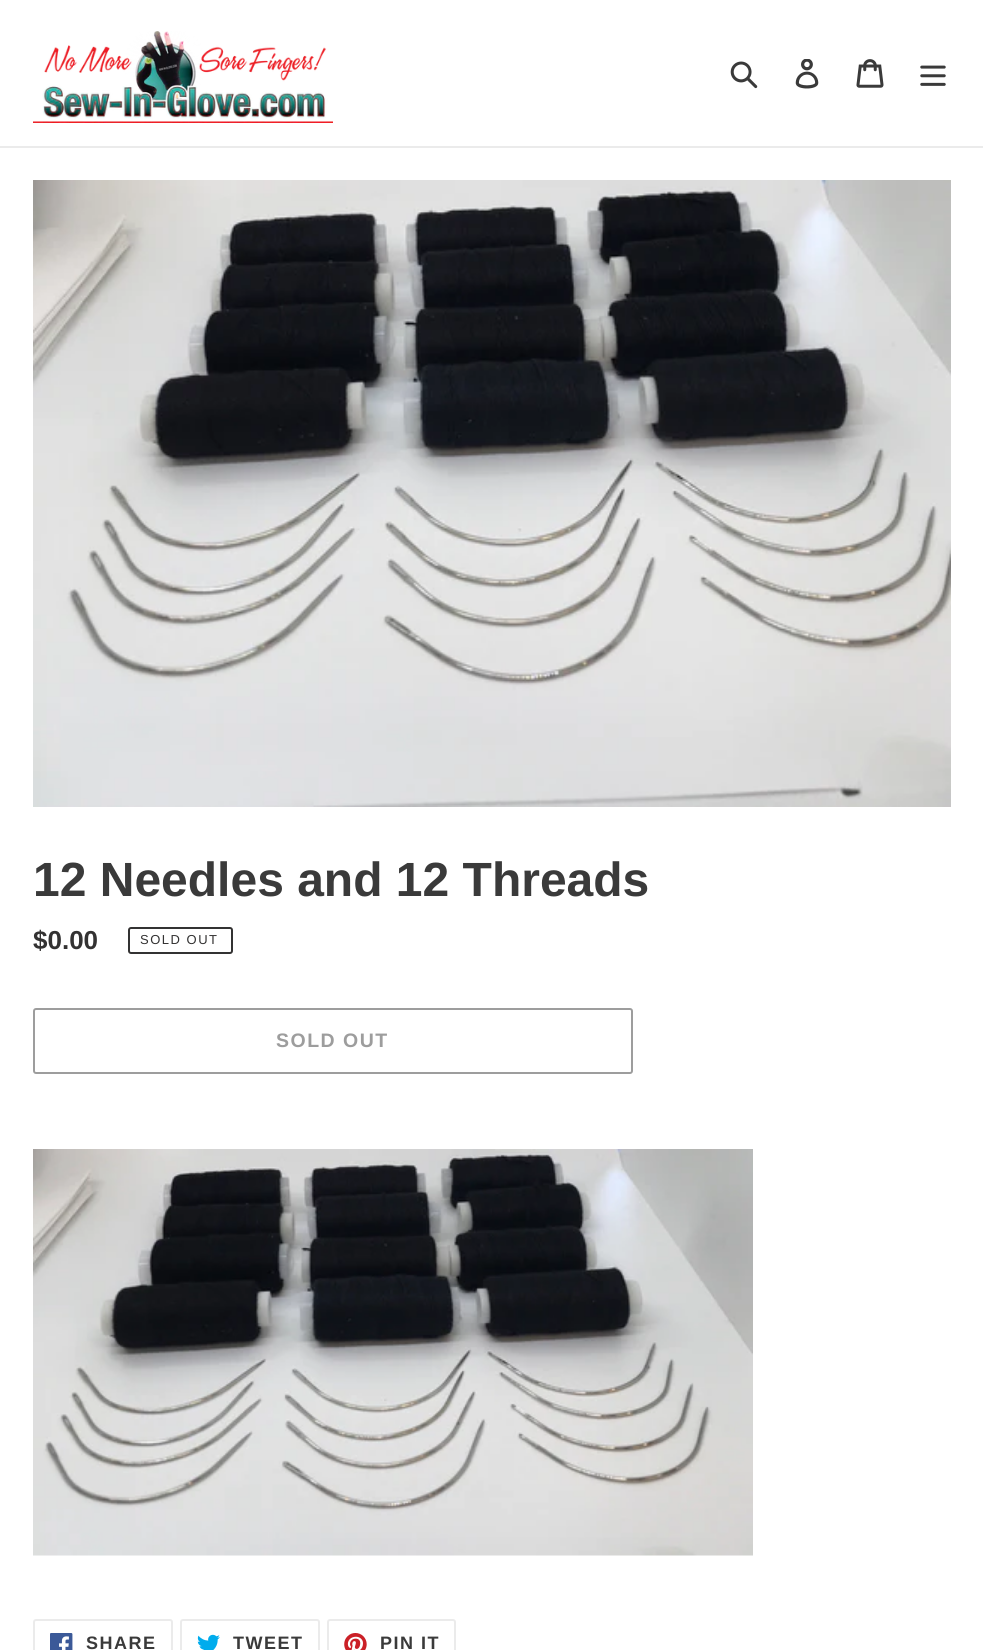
#include <cairo.h>
#include <math.h>
#include <stddef.h>

static cairo_t *ctx;

static void use_color(int r, int g, int b) {
    cairo_set_source_rgb(ctx, r / 255.0, g / 255.0, b / 255.0);
}

static void spaced_text(double x, double y, const char *s, double letter, double word) {
    cairo_move_to(ctx, x, y);
    while (*s) {
        char ch[5] = {0};
        int n = 0;
        do ch[n++] = *s++; while ((*s & 0xC0) == 0x80);
        cairo_show_text(ctx, ch);
        cairo_rel_move_to(ctx, letter + word * (*ch == ' '), 0);
    }
}

static void round_rect(double x, double y, double w, double h, double r) {
    cairo_new_sub_path(ctx);
    cairo_arc(ctx, x + w - r, y + h - r, r, 0, M_PI / 2);
    cairo_arc(ctx, x + r, y + h - r, r, M_PI / 2, M_PI);
    cairo_arc(ctx, x + r, y + r, r, M_PI, 1.5 * M_PI);
    cairo_arc(ctx, x + w - r, y + r, r, 1.5 * M_PI, 2 * M_PI);
    cairo_close_path(ctx);
}

static void picture(const char *path, double x, double y, double w, double h) {
    cairo_surface_t *image = cairo_image_surface_create_from_png(path);
    cairo_save(ctx);
    cairo_set_source_surface(ctx, image, x, y);
    cairo_rectangle(ctx, x, y, w, h);
    cairo_fill(ctx);
    cairo_restore(ctx);
    cairo_surface_destroy(image);
}

int main(void) {
    cairo_surface_t *surface = cairo_image_surface_create(CAIRO_FORMAT_RGB24, 983, 1650);
    ctx = cairo_create(surface);
    cairo_font_options_t *options = cairo_font_options_create();
    cairo_font_options_set_hint_metrics(options, CAIRO_HINT_METRICS_OFF);
    cairo_font_options_set_hint_style(options, CAIRO_HINT_STYLE_NONE);
    cairo_set_font_options(ctx, options);
    cairo_set_miter_limit(ctx, 4);
    use_color(255, 255, 255);
    cairo_paint(ctx);
    use_color(235, 235, 235);
    cairo_rectangle(ctx, 0, 146, 983, 2);
    cairo_fill(ctx);
    picture("img1.png", 33, 31, 300, 92);
    picture("img2.png", 730, 61, 28, 28);
    picture("img3.png", 795, 59, 24, 30);
    picture("img4.png", 856, 59, 28, 29);
    picture("img5.png", 920, 65, 26, 21);
    picture("img6.png", 33, 180, 918, 627);
    cairo_select_font_face(ctx, "Liberation Sans", CAIRO_FONT_SLANT_NORMAL, CAIRO_FONT_WEIGHT_BOLD);
    cairo_set_font_size(ctx, 48);
    use_color(58, 58, 58);
    cairo_move_to(ctx, 33, 896);
    cairo_show_text(ctx, "12 Needles and 12 Threads");
    cairo_set_font_size(ctx, 26);
    use_color(51, 50, 50);
    cairo_move_to(ctx, 33, 949);
    cairo_show_text(ctx, "$0.00");
    round_rect(129, 928, 103, 25, 2);
    cairo_stroke(ctx);
    cairo_select_font_face(ctx, "Liberation Sans", CAIRO_FONT_SLANT_NORMAL, CAIRO_FONT_WEIGHT_NORMAL);
    cairo_set_font_size(ctx, 13);
    spaced_text(140, 944, "SOLD OUT", 1.5, 0);
    round_rect(34, 1009, 598, 64, 2);
    use_color(157, 157, 157);
    cairo_stroke(ctx);
    cairo_select_font_face(ctx, "Liberation Sans", CAIRO_FONT_SLANT_NORMAL, CAIRO_FONT_WEIGHT_BOLD);
    cairo_set_font_size(ctx, 19.5);
    spaced_text(276, 1047, "SOLD OUT", 1.5, 0);
    picture("img7.png", 33, 1149, 720, 407);
    round_rect(34, 1620, 138, 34, 2);
    use_color(235, 235, 235);
    cairo_stroke(ctx);
    picture("img8.png", 50, 1633, 23, 17);
    cairo_set_font_size(ctx, 18);
    use_color(58, 58, 58);
    spaced_text(86, 1649, "SHARE", 1.5, 0);
    round_rect(181, 1620, 138, 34, 2);
    use_color(235, 235, 235);
    cairo_stroke(ctx);
    picture("img9.png", 197, 1634, 23, 16);
    use_color(58, 58, 58);
    spaced_text(233, 1649, "TWEET", 1.5, 0);
    round_rect(328, 1620, 127, 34, 2);
    use_color(235, 235, 235);
    cairo_stroke(ctx);
    picture("img10.png", 344, 1633, 23, 17);
    use_color(58, 58, 58);
    spaced_text(380, 1649, "PIN IT", 1.5, 0);
    cairo_surface_write_to_png(surface, "result.png");
    cairo_font_options_destroy(options);
    cairo_destroy(ctx);
    cairo_surface_destroy(surface);
    return 0;
}
